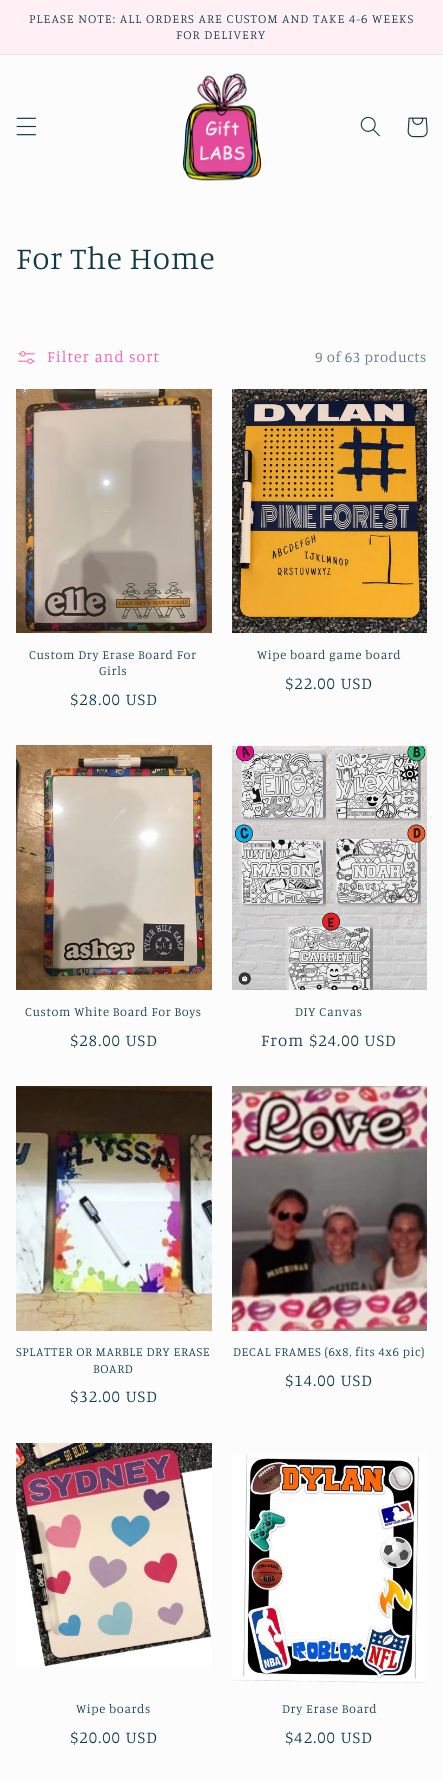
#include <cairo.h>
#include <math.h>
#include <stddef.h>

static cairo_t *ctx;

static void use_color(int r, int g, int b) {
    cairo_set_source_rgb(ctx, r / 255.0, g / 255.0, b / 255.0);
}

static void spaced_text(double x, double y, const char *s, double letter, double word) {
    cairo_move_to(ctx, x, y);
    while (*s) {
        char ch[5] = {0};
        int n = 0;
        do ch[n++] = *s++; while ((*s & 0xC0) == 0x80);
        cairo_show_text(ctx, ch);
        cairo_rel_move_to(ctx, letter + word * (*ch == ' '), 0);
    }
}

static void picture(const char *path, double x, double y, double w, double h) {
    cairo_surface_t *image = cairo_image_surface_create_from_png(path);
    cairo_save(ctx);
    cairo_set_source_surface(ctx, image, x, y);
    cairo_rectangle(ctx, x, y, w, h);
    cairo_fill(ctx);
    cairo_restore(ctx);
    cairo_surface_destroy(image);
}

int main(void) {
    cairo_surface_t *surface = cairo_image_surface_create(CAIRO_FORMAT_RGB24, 443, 1781);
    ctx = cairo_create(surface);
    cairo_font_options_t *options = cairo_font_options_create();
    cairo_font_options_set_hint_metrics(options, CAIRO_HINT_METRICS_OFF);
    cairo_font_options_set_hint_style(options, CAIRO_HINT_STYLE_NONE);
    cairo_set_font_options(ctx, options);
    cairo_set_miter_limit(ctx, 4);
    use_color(252, 252, 252);
    cairo_paint(ctx);
    use_color(255, 240, 246);
    cairo_rectangle(ctx, 0, 0, 443, 54);
    cairo_fill(ctx);
    use_color(236, 225, 232);
    cairo_rectangle(ctx, 0, 54, 443, 1);
    cairo_fill(ctx);
    cairo_select_font_face(ctx, "Manuale Light", CAIRO_FONT_SLANT_NORMAL, CAIRO_FONT_WEIGHT_NORMAL);
    cairo_set_font_size(ctx, 12.6);
    use_color(16, 57, 72);
    spaced_text(29, 23, "PLEASE NOTE: ALL ORDERS ARE CUSTOM AND TAKE 4-6 WEEKS", 1.05, 0);
    spaced_text(176, 39, "FOR DELIVERY", 1.05, 0);
    picture("img1.png", 16, 117, 20, 19);
    picture("img2.png", 182, 73, 80, 108);
    picture("img3.png", 360, 116, 20, 21);
    picture("img4.png", 407, 117, 21, 21);
    cairo_set_font_size(ctx, 31.5);
    spaced_text(16, 269, "For The Home", 0.6, 0);
    picture("img5.png", 18, 351, 17, 13);
    cairo_set_font_size(ctx, 15.75);
    use_color(239, 88, 166);
    spaced_text(47, 362, "Filter and sort", 1.05, 0);
    cairo_set_font_size(ctx, 14.75);
    use_color(87, 116, 126);
    spaced_text(315, 362, "9 of 63 products", 0.6, 0);
    picture("img6.png", 16, 389, 196, 244);
    cairo_set_font_size(ctx, 12.6);
    use_color(16, 57, 72);
    spaced_text(29, 659, "Custom Dry Erase Board For", 0.6, 0);
    spaced_text(99, 675, "Girls", 0.6, 0);
    cairo_set_font_size(ctx, 16.75);
    spaced_text(70, 705, "$28.00 USD", 1.05, 0);
    picture("img7.png", 232, 389, 195, 244);
    cairo_set_font_size(ctx, 12.6);
    spaced_text(257, 659, "Wipe board game board", 0.6, 0);
    cairo_set_font_size(ctx, 16.75);
    spaced_text(285, 689, "$22.00 USD", 1.05, 0);
    picture("img8.png", 16, 745, 196, 245);
    cairo_set_font_size(ctx, 12.6);
    spaced_text(25, 1016, "Custom White Board For Boys", 0.6, 0);
    cairo_set_font_size(ctx, 16.75);
    spaced_text(70, 1046, "$28.00 USD", 1.05, 0);
    picture("img9.png", 232, 745, 195, 245);
    cairo_set_font_size(ctx, 12.6);
    spaced_text(295, 1016, "DIY Canvas", 0.6, 0);
    cairo_set_font_size(ctx, 16.75);
    spaced_text(261, 1046, "From $24.00 USD", 1.05, 0);
    picture("img10.png", 16, 1086, 196, 245);
    cairo_set_font_size(ctx, 12.6);
    spaced_text(16, 1356, "SPLATTER OR MARBLE DRY ERASE", 0.6, 0);
    spaced_text(93, 1373, "BOARD", 0.6, 0);
    cairo_set_font_size(ctx, 16.75);
    spaced_text(70, 1402, "$32.00 USD", 1.05, 0);
    picture("img11.png", 232, 1086, 195, 245);
    cairo_set_font_size(ctx, 12.6);
    spaced_text(233, 1356, "DECAL FRAMES (6x8, fits 4x6 pic)", 0.6, 0);
    cairo_set_font_size(ctx, 16.75);
    spaced_text(285, 1386, "$14.00 USD", 1.05, 0);
    picture("img12.png", 16, 1443, 196, 224);
    cairo_set_font_size(ctx, 12.6);
    spaced_text(76, 1713, "Wipe boards", 0.6, 0);
    cairo_set_font_size(ctx, 16.75);
    spaced_text(70, 1743, "$20.00 USD", 1.05, 0);
    picture("img13.png", 232, 1454, 195, 230);
    cairo_set_font_size(ctx, 12.6);
    spaced_text(282, 1713, "Dry Erase Board", 0.6, 0);
    cairo_set_font_size(ctx, 16.75);
    spaced_text(285, 1743, "$42.00 USD", 1.05, 0);
    cairo_surface_write_to_png(surface, "result.png");
    cairo_font_options_destroy(options);
    cairo_destroy(ctx);
    cairo_surface_destroy(surface);
    return 0;
}
